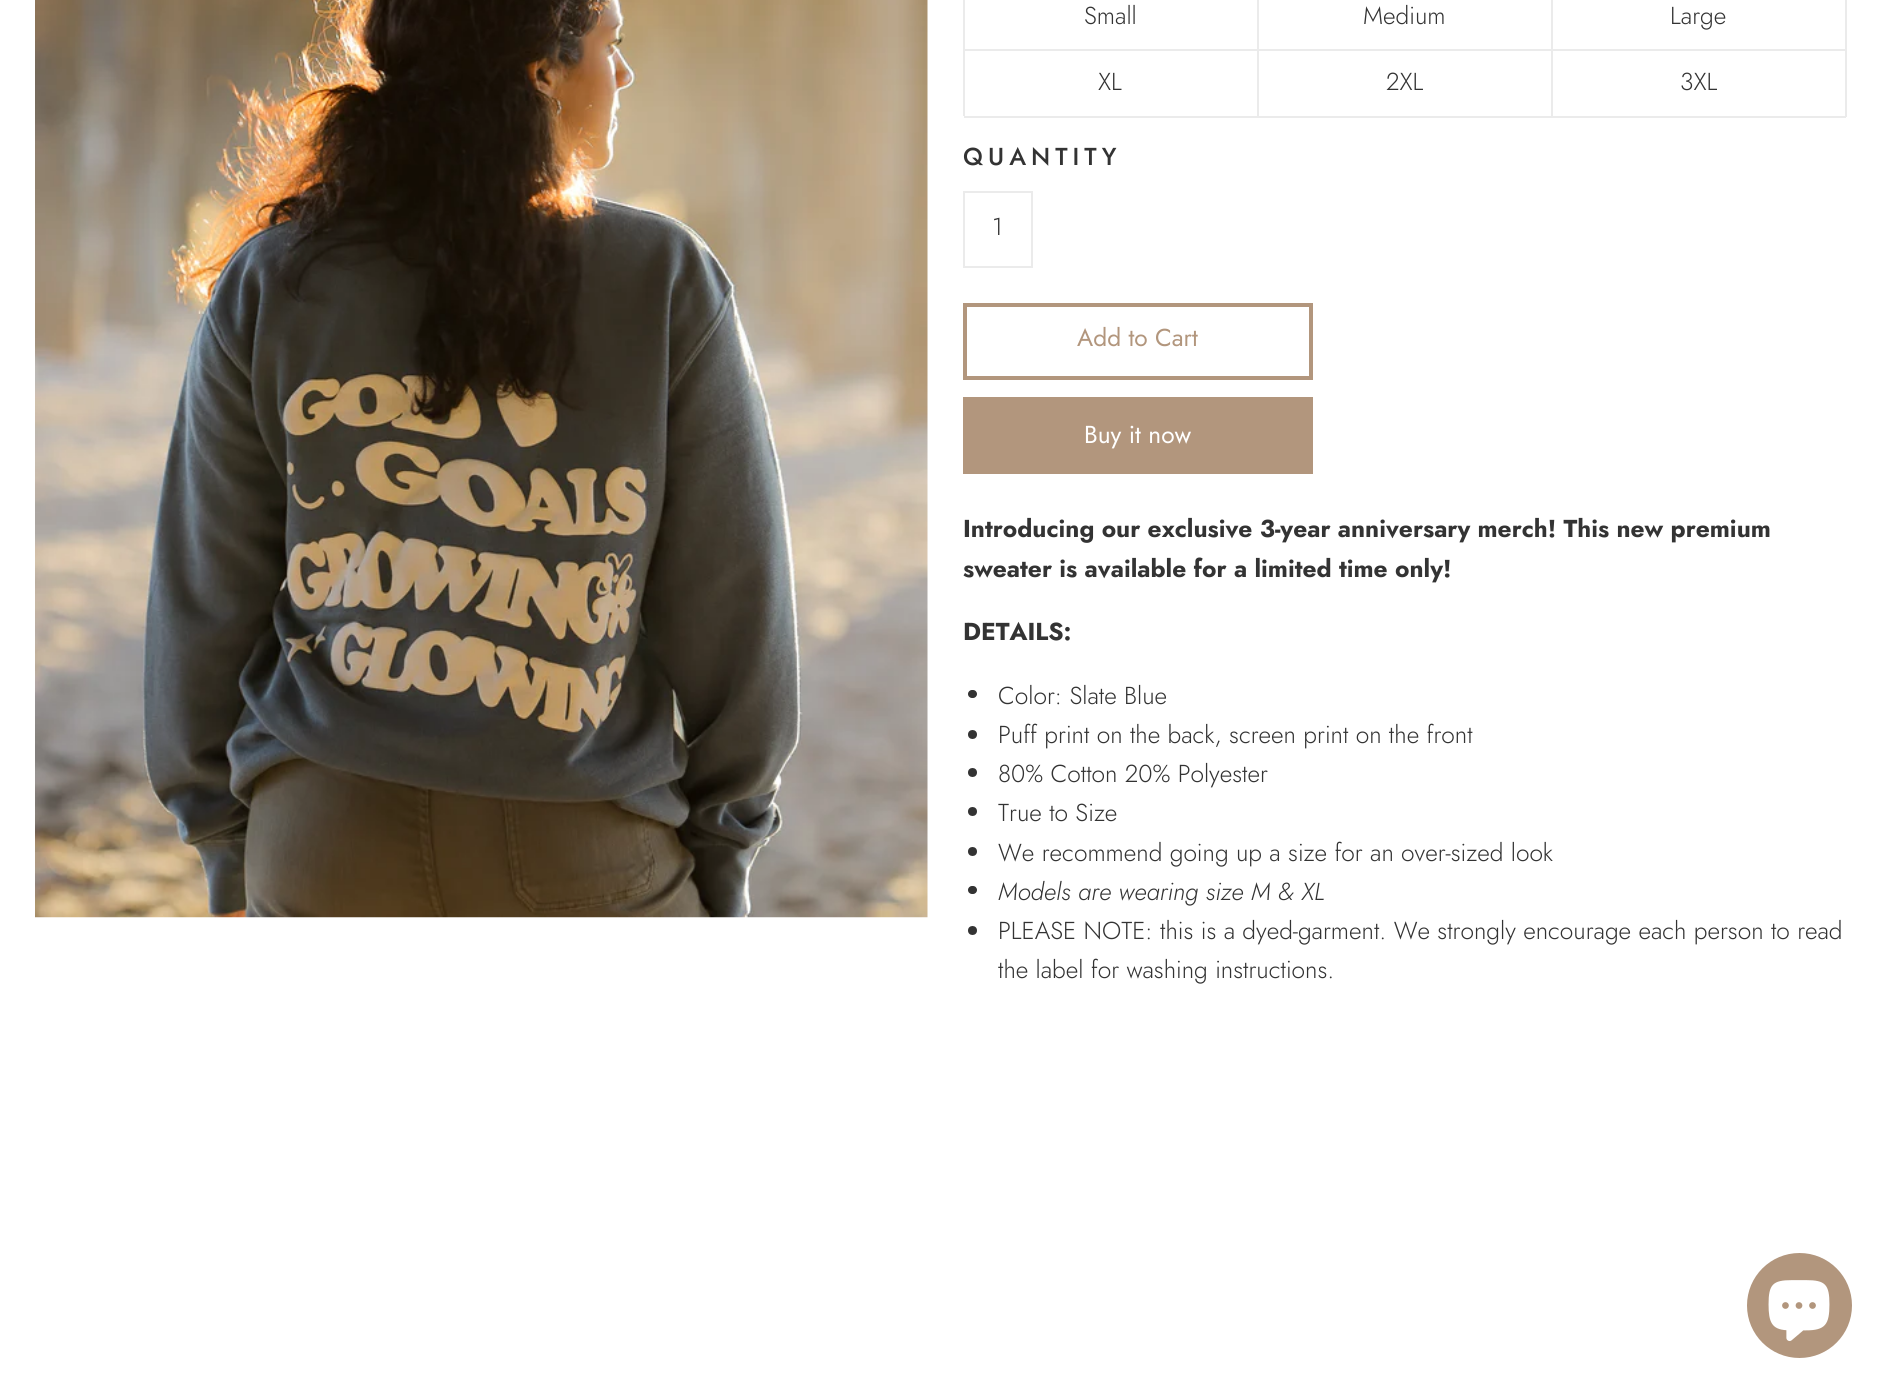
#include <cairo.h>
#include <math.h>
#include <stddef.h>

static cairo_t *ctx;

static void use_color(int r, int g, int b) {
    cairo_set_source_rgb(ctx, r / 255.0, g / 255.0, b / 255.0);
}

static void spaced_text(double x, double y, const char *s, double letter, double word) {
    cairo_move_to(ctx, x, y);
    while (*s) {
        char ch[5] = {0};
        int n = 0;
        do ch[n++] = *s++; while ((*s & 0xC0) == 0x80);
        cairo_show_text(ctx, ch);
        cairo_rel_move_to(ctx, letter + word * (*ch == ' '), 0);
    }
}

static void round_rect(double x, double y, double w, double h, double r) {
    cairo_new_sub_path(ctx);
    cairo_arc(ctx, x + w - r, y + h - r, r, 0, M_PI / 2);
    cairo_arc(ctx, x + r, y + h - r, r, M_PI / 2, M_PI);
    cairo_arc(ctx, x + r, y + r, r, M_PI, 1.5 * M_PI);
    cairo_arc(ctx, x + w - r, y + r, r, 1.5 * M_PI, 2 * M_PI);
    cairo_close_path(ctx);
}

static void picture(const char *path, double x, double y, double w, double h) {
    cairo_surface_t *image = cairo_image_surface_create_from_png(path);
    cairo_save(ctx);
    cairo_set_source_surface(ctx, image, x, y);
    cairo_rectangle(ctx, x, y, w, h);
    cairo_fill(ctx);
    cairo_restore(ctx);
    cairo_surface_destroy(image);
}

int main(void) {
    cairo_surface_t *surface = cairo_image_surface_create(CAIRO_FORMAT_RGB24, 1889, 1394);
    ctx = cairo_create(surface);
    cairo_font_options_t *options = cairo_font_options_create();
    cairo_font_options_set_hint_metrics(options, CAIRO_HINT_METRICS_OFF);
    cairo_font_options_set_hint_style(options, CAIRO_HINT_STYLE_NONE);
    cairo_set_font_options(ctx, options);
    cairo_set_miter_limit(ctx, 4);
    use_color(255, 255, 255);
    cairo_paint(ctx);
    picture("img1.png", 35, 0, 893, 918);
    use_color(235, 235, 235);
    cairo_rectangle(ctx, 963, 0, 2, 116);
    cairo_fill(ctx);
    cairo_rectangle(ctx, 1257, 0, 2, 51);
    cairo_fill(ctx);
    cairo_rectangle(ctx, 964, 49, 294, 2);
    cairo_fill(ctx);
    cairo_select_font_face(ctx, "Jost Light", CAIRO_FONT_SLANT_NORMAL, CAIRO_FONT_WEIGHT_NORMAL);
    cairo_set_font_size(ctx, 24.5);
    use_color(51, 51, 51);
    cairo_move_to(ctx, 1084, 24);
    cairo_show_text(ctx, "Small");
    use_color(235, 235, 235);
    cairo_rectangle(ctx, 1551, 0, 2, 51);
    cairo_fill(ctx);
    cairo_rectangle(ctx, 1258, 49, 294, 2);
    cairo_fill(ctx);
    use_color(51, 51, 51);
    cairo_move_to(ctx, 1363, 24);
    cairo_show_text(ctx, "Medium");
    use_color(235, 235, 235);
    cairo_rectangle(ctx, 1845, 0, 2, 51);
    cairo_fill(ctx);
    cairo_rectangle(ctx, 1552, 49, 294, 2);
    cairo_fill(ctx);
    use_color(51, 51, 51);
    cairo_move_to(ctx, 1670, 24);
    cairo_show_text(ctx, "Large");
    use_color(235, 235, 235);
    cairo_rectangle(ctx, 1257, 49, 2, 68);
    cairo_fill(ctx);
    cairo_rectangle(ctx, 964, 116, 294, 2);
    cairo_fill(ctx);
    use_color(51, 51, 51);
    cairo_move_to(ctx, 1098, 90);
    cairo_show_text(ctx, "XL");
    use_color(235, 235, 235);
    cairo_rectangle(ctx, 1551, 49, 2, 68);
    cairo_fill(ctx);
    cairo_rectangle(ctx, 1258, 116, 294, 2);
    cairo_fill(ctx);
    use_color(51, 51, 51);
    cairo_move_to(ctx, 1386, 90);
    cairo_show_text(ctx, "2XL");
    use_color(235, 235, 235);
    cairo_rectangle(ctx, 1845, 49, 2, 68);
    cairo_fill(ctx);
    cairo_rectangle(ctx, 1552, 116, 294, 2);
    cairo_fill(ctx);
    use_color(51, 51, 51);
    cairo_move_to(ctx, 1680, 90);
    cairo_show_text(ctx, "3XL");
    cairo_select_font_face(ctx, "Jost Medium", CAIRO_FONT_SLANT_NORMAL, CAIRO_FONT_WEIGHT_NORMAL);
    spaced_text(963, 165, "QUANTITY", 5, 0);
    cairo_rectangle(ctx, 964, 192, 68, 75);
    use_color(235, 235, 235);
    cairo_stroke(ctx);
    cairo_select_font_face(ctx, "Jost Light", CAIRO_FONT_SLANT_NORMAL, CAIRO_FONT_WEIGHT_NORMAL);
    use_color(51, 51, 51);
    cairo_move_to(ctx, 992, 235);
    cairo_show_text(ctx, "1");
    cairo_rectangle(ctx, 965, 305, 346, 73);
    use_color(178, 150, 125);
    cairo_set_line_width(ctx, 4);
    cairo_stroke(ctx);
    cairo_select_font_face(ctx, "Jost", CAIRO_FONT_SLANT_NORMAL, CAIRO_FONT_WEIGHT_NORMAL);
    cairo_move_to(ctx, 1077, 346);
    cairo_show_text(ctx, "Add to Cart");
    cairo_rectangle(ctx, 963, 397, 350, 77);
    cairo_fill(ctx);
    use_color(255, 255, 255);
    cairo_move_to(ctx, 1084, 443);
    cairo_show_text(ctx, "Buy it now");
    cairo_select_font_face(ctx, "Jost", CAIRO_FONT_SLANT_NORMAL, CAIRO_FONT_WEIGHT_BOLD);
    use_color(51, 51, 51);
    cairo_move_to(ctx, 963, 537);
    cairo_show_text(ctx, "Introducing our exclusive 3-year anniversary merch! This new premium");
    cairo_move_to(ctx, 963, 577);
    cairo_show_text(ctx, "sweater is available for a limited time only!");
    cairo_move_to(ctx, 963, 640);
    cairo_show_text(ctx, "DETAILS:");
    round_rect(968, 690, 9, 8, 4);
    cairo_fill(ctx);
    cairo_select_font_face(ctx, "Jost Light", CAIRO_FONT_SLANT_NORMAL, CAIRO_FONT_WEIGHT_NORMAL);
    cairo_move_to(ctx, 998, 704);
    cairo_show_text(ctx, "Color: Slate Blue");
    cairo_new_path(ctx);
    cairo_arc(ctx, 972.5, 734.5, 4.5, 0, 2 * M_PI);
    cairo_fill(ctx);
    cairo_move_to(ctx, 998, 743);
    cairo_show_text(ctx, "Puff print on the back, screen print on the front");
    cairo_new_path(ctx);
    cairo_arc(ctx, 972.5, 772.5, 4.5, 0, 2 * M_PI);
    cairo_fill(ctx);
    cairo_move_to(ctx, 998, 782);
    cairo_show_text(ctx, "80% Cotton 20% Polyester");
    cairo_new_path(ctx);
    cairo_arc(ctx, 972.5, 811.5, 4.5, 0, 2 * M_PI);
    cairo_fill(ctx);
    cairo_move_to(ctx, 998, 821);
    cairo_show_text(ctx, "True to Size");
    cairo_new_path(ctx);
    cairo_arc(ctx, 972.5, 851.5, 4.5, 0, 2 * M_PI);
    cairo_fill(ctx);
    cairo_move_to(ctx, 998, 861);
    cairo_show_text(ctx, "We recommend going up a size for an over-sized look");
    round_rect(968, 886, 9, 8, 4);
    cairo_fill(ctx);
    cairo_select_font_face(ctx, "Jost Light", CAIRO_FONT_SLANT_ITALIC, CAIRO_FONT_WEIGHT_NORMAL);
    cairo_move_to(ctx, 998, 900);
    cairo_show_text(ctx, "Models are wearing size M & XL");
    cairo_new_path(ctx);
    cairo_arc(ctx, 972.5, 930.5, 4.5, 0, 2 * M_PI);
    cairo_fill(ctx);
    cairo_select_font_face(ctx, "Jost Light", CAIRO_FONT_SLANT_NORMAL, CAIRO_FONT_WEIGHT_NORMAL);
    cairo_move_to(ctx, 998, 939);
    cairo_show_text(ctx, "PLEASE NOTE: this is a dyed-garment. We strongly encourage each person to read");
    cairo_move_to(ctx, 998, 978);
    cairo_show_text(ctx, "the label for washing instructions.");
    use_color(178, 150, 125);
    cairo_new_path(ctx);
    cairo_arc(ctx, 1799.5, 1305.5, 52.5, 0, 2 * M_PI);
    cairo_fill(ctx);
    picture("img2.png", 1768, 1280, 62, 61);
    cairo_surface_write_to_png(surface, "result.png");
    cairo_font_options_destroy(options);
    cairo_destroy(ctx);
    cairo_surface_destroy(surface);
    return 0;
}
